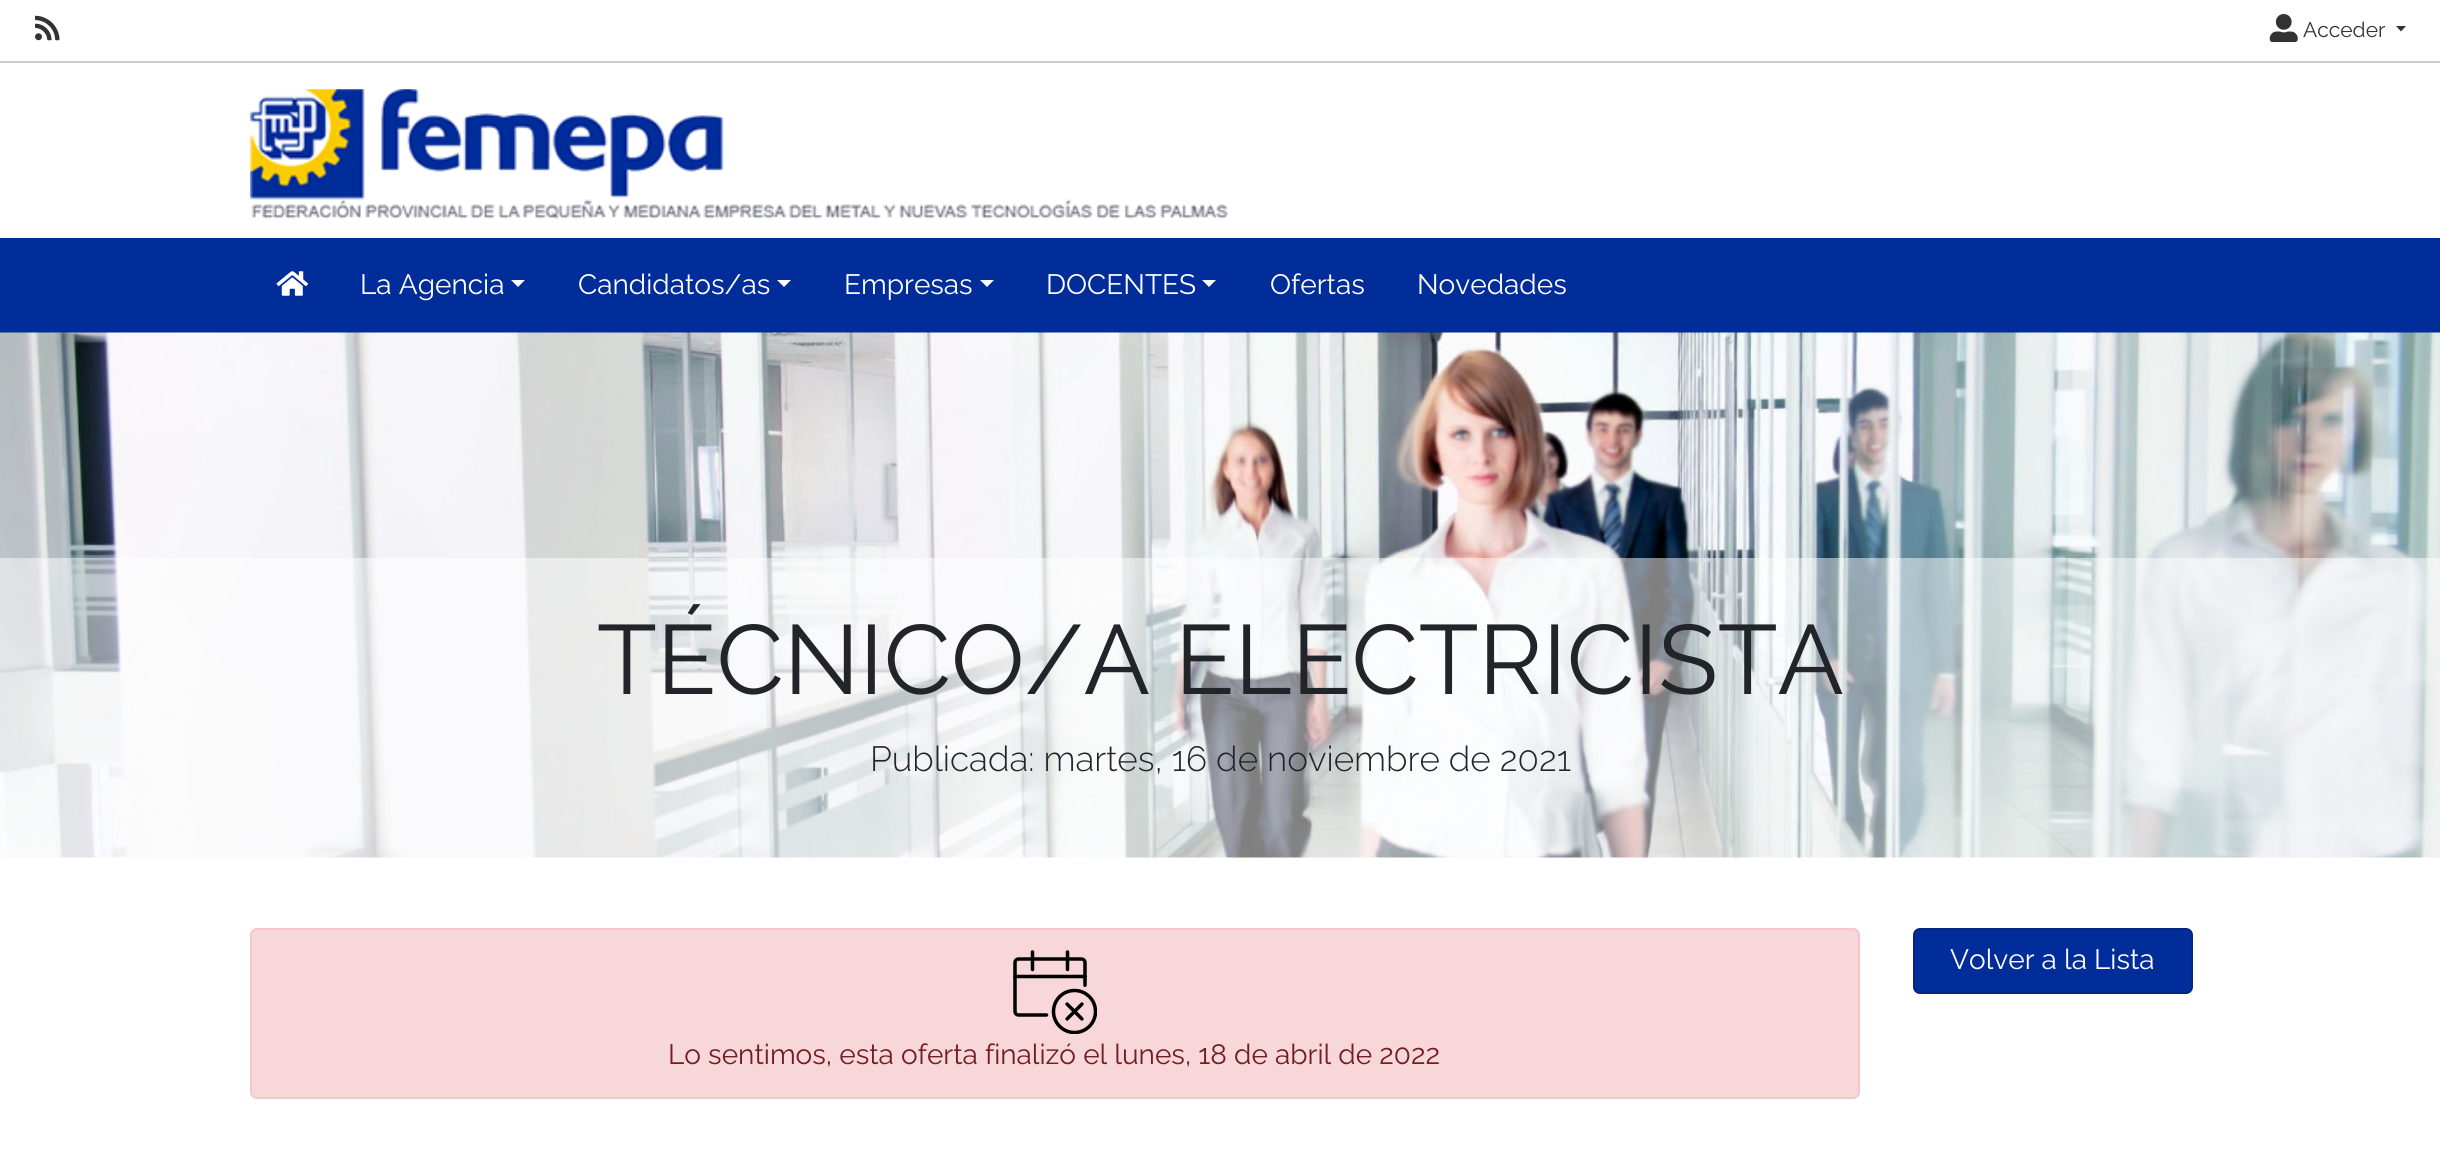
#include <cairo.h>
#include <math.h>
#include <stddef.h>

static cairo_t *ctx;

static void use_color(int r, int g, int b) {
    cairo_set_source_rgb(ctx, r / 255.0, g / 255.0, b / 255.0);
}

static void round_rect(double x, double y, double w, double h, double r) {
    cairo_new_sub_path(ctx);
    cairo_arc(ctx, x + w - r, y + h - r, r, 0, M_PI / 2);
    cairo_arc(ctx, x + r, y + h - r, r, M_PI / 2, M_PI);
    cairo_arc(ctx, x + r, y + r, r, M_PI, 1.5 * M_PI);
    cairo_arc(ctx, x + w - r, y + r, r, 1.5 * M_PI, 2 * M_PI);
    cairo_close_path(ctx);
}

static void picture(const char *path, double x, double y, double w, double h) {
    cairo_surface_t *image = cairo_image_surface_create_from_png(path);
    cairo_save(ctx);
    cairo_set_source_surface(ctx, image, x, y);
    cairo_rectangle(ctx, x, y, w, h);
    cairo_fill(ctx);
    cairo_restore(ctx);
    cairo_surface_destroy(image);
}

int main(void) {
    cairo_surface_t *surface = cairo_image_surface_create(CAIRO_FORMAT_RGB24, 2440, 1149);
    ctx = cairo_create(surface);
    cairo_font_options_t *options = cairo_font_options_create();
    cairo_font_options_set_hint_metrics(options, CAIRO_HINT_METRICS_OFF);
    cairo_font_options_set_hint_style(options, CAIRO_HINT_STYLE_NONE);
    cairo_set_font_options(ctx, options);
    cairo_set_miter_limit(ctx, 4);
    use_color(255, 255, 255);
    cairo_paint(ctx);
    use_color(204, 204, 204);
    cairo_rectangle(ctx, 0, 61, 2440, 2);
    cairo_fill(ctx);
    picture("img1.png", 35, 15, 25, 26);
    picture("img2.png", 2269, 14, 29, 28);
    cairo_select_font_face(ctx, "Raleway", CAIRO_FONT_SLANT_NORMAL, CAIRO_FONT_WEIGHT_NORMAL);
    cairo_set_font_size(ctx, 21);
    use_color(51, 51, 51);
    cairo_move_to(ctx, 2303, 37);
    cairo_show_text(ctx, "Acceder");
    cairo_new_path(ctx);
    cairo_move_to(ctx, 2396, 26);
    cairo_line_to(ctx, 2406, 26);
    cairo_line_to(ctx, 2401, 31.5);
    cairo_close_path(ctx);
    cairo_fill(ctx);
    picture("img3.png", 250, 89, 979, 131);
    use_color(1, 45, 154);
    cairo_rectangle(ctx, 0, 238, 2440, 95);
    cairo_fill(ctx);
    picture("img4.png", 276, 271, 32, 25);
    cairo_set_font_size(ctx, 28);
    use_color(255, 255, 255);
    cairo_move_to(ctx, 360, 294);
    cairo_show_text(ctx, "La Agencia");
    cairo_new_path(ctx);
    cairo_move_to(ctx, 511, 280);
    cairo_line_to(ctx, 525, 280);
    cairo_line_to(ctx, 518, 287);
    cairo_close_path(ctx);
    cairo_fill(ctx);
    cairo_move_to(ctx, 578, 294);
    cairo_show_text(ctx, "Candidatos/as");
    cairo_new_path(ctx);
    cairo_move_to(ctx, 777, 280);
    cairo_line_to(ctx, 791, 280);
    cairo_line_to(ctx, 784, 287);
    cairo_close_path(ctx);
    cairo_fill(ctx);
    cairo_move_to(ctx, 844, 294);
    cairo_show_text(ctx, "Empresas");
    cairo_new_path(ctx);
    cairo_move_to(ctx, 980, 280);
    cairo_line_to(ctx, 994, 280);
    cairo_line_to(ctx, 987, 287);
    cairo_close_path(ctx);
    cairo_fill(ctx);
    cairo_move_to(ctx, 1046, 294);
    cairo_show_text(ctx, "DOCENTES");
    cairo_new_path(ctx);
    cairo_move_to(ctx, 1202, 280);
    cairo_line_to(ctx, 1216, 280);
    cairo_line_to(ctx, 1209, 287);
    cairo_close_path(ctx);
    cairo_fill(ctx);
    cairo_move_to(ctx, 1270, 294);
    cairo_show_text(ctx, "Ofertas");
    cairo_move_to(ctx, 1417, 294);
    cairo_show_text(ctx, "Novedades");
    picture("img5.png", 0, 332, 2440, 526);
    cairo_set_source_rgba(ctx, 1, 1, 1, 0.5);
    cairo_rectangle(ctx, 0, 558, 2440, 300);
    cairo_fill(ctx);
    cairo_set_font_size(ctx, 98);
    use_color(33, 37, 41);
    cairo_move_to(ctx, 597, 694);
    cairo_show_text(ctx, "TÉCNICO/A ELECTRICISTA");
    cairo_select_font_face(ctx, "Raleway Light", CAIRO_FONT_SLANT_NORMAL, CAIRO_FONT_WEIGHT_NORMAL);
    cairo_set_font_size(ctx, 35);
    cairo_move_to(ctx, 870, 771);
    cairo_show_text(ctx, "Publicada: martes, 16 de noviembre de 2021");
    use_color(1, 45, 154);
    round_rect(1914, 929, 278, 64, 6);
    cairo_fill_preserve(ctx);
    use_color(1, 39, 129);
    cairo_stroke(ctx);
    cairo_select_font_face(ctx, "Raleway", CAIRO_FONT_SLANT_NORMAL, CAIRO_FONT_WEIGHT_NORMAL);
    cairo_set_font_size(ctx, 28);
    use_color(255, 255, 255);
    cairo_move_to(ctx, 1950, 969);
    cairo_show_text(ctx, "Volver a la Lista");
    use_color(248, 215, 218);
    round_rect(251, 929, 1608, 169, 6);
    cairo_fill_preserve(ctx);
    use_color(245, 198, 203);
    cairo_stroke(ctx);
    picture("img6.png", 1013, 950, 84, 84);
    use_color(114, 28, 36);
    cairo_move_to(ctx, 668, 1064);
    cairo_show_text(ctx, "Lo sentimos, esta oferta finalizó el lunes, 18 de abril de 2022");
    cairo_surface_write_to_png(surface, "result.png");
    cairo_font_options_destroy(options);
    cairo_destroy(ctx);
    cairo_surface_destroy(surface);
    return 0;
}
